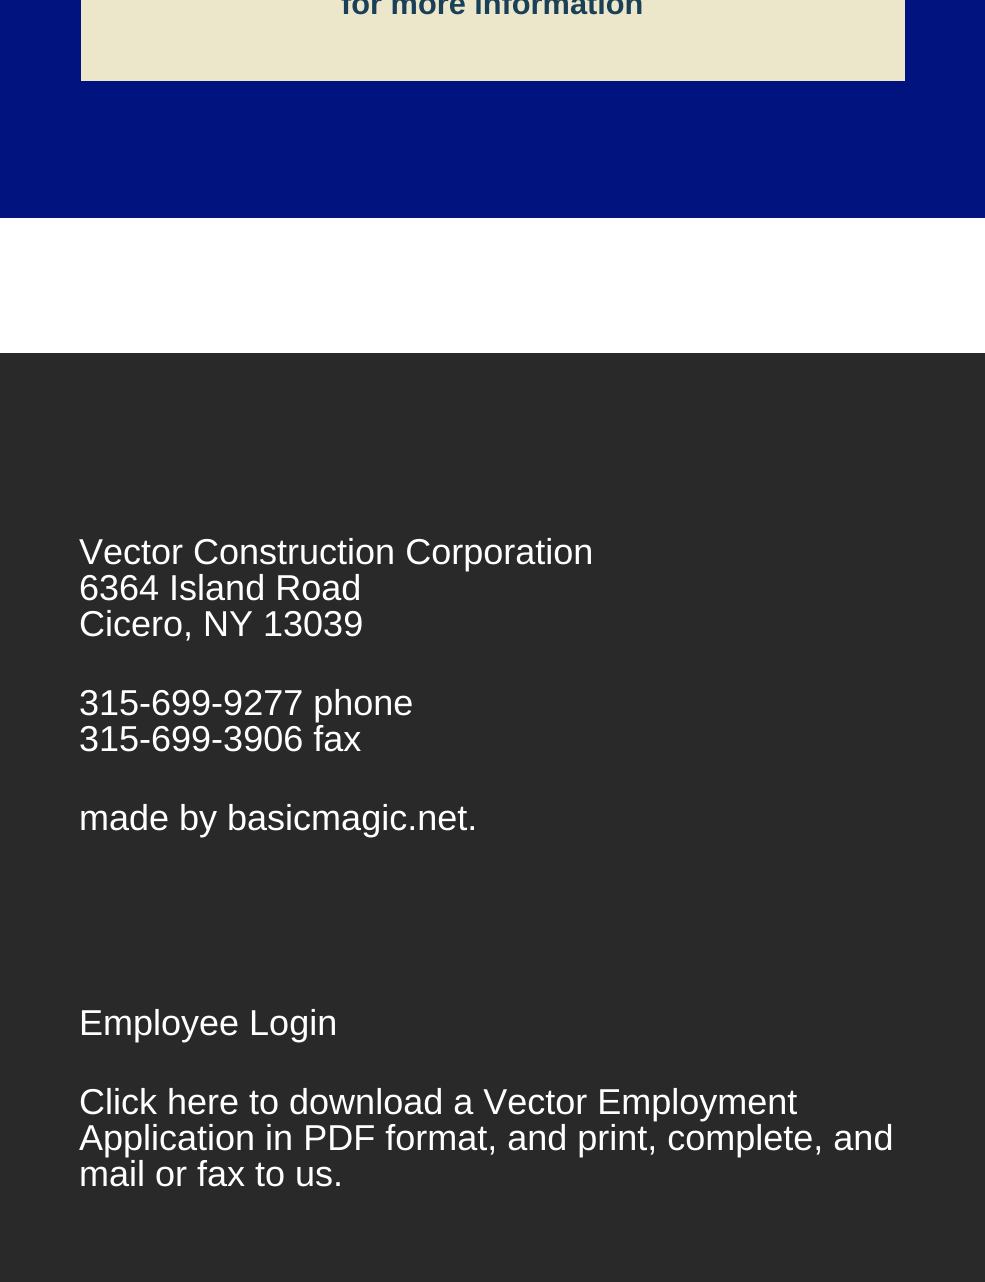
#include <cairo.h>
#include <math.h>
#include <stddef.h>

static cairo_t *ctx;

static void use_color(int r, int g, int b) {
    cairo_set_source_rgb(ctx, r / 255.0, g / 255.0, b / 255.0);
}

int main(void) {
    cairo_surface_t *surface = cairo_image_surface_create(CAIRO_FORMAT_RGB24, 985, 1282);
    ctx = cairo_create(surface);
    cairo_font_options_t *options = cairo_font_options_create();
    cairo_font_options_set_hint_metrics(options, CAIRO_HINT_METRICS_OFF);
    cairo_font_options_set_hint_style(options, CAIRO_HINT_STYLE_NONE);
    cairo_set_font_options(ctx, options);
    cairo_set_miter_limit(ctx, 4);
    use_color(1, 19, 126);
    cairo_paint(ctx);
    use_color(236, 230, 203);
    cairo_rectangle(ctx, 81, 0, 824, 81);
    cairo_fill(ctx);
    cairo_select_font_face(ctx, "Liberation Sans", CAIRO_FONT_SLANT_NORMAL, CAIRO_FONT_WEIGHT_BOLD);
    cairo_set_font_size(ctx, 30.75);
    use_color(26, 64, 88);
    cairo_move_to(ctx, 341, 14);
    cairo_show_text(ctx, "for more information");
    use_color(255, 255, 255);
    cairo_rectangle(ctx, 0, 218, 985, 135);
    cairo_fill(ctx);
    use_color(41, 41, 41);
    cairo_rectangle(ctx, 0, 353, 985, 929);
    cairo_fill(ctx);
    cairo_select_font_face(ctx, "Liberation Sans", CAIRO_FONT_SLANT_NORMAL, CAIRO_FONT_WEIGHT_NORMAL);
    cairo_set_font_size(ctx, 36);
    use_color(255, 255, 255);
    cairo_move_to(ctx, 79, 564);
    cairo_show_text(ctx, "Vector Construction Corporation");
    cairo_move_to(ctx, 79, 600);
    cairo_show_text(ctx, "6364 Island Road");
    cairo_move_to(ctx, 79, 636);
    cairo_show_text(ctx, "Cicero, NY 13039");
    cairo_move_to(ctx, 79, 715);
    cairo_show_text(ctx, "315-699-9277 phone");
    cairo_move_to(ctx, 79, 751);
    cairo_show_text(ctx, "315-699-3906 fax");
    cairo_move_to(ctx, 79, 830);
    cairo_show_text(ctx, "made by basicmagic.net.");
    cairo_move_to(ctx, 79, 1035);
    cairo_show_text(ctx, "Employee Login");
    cairo_move_to(ctx, 79, 1114);
    cairo_show_text(ctx, "Click here to download a Vector Employment");
    cairo_move_to(ctx, 79, 1150);
    cairo_show_text(ctx, "Application in PDF format, and print, complete, and");
    cairo_move_to(ctx, 79, 1186);
    cairo_show_text(ctx, "mail or fax to us.");
    cairo_surface_write_to_png(surface, "result.png");
    cairo_font_options_destroy(options);
    cairo_destroy(ctx);
    cairo_surface_destroy(surface);
    return 0;
}
